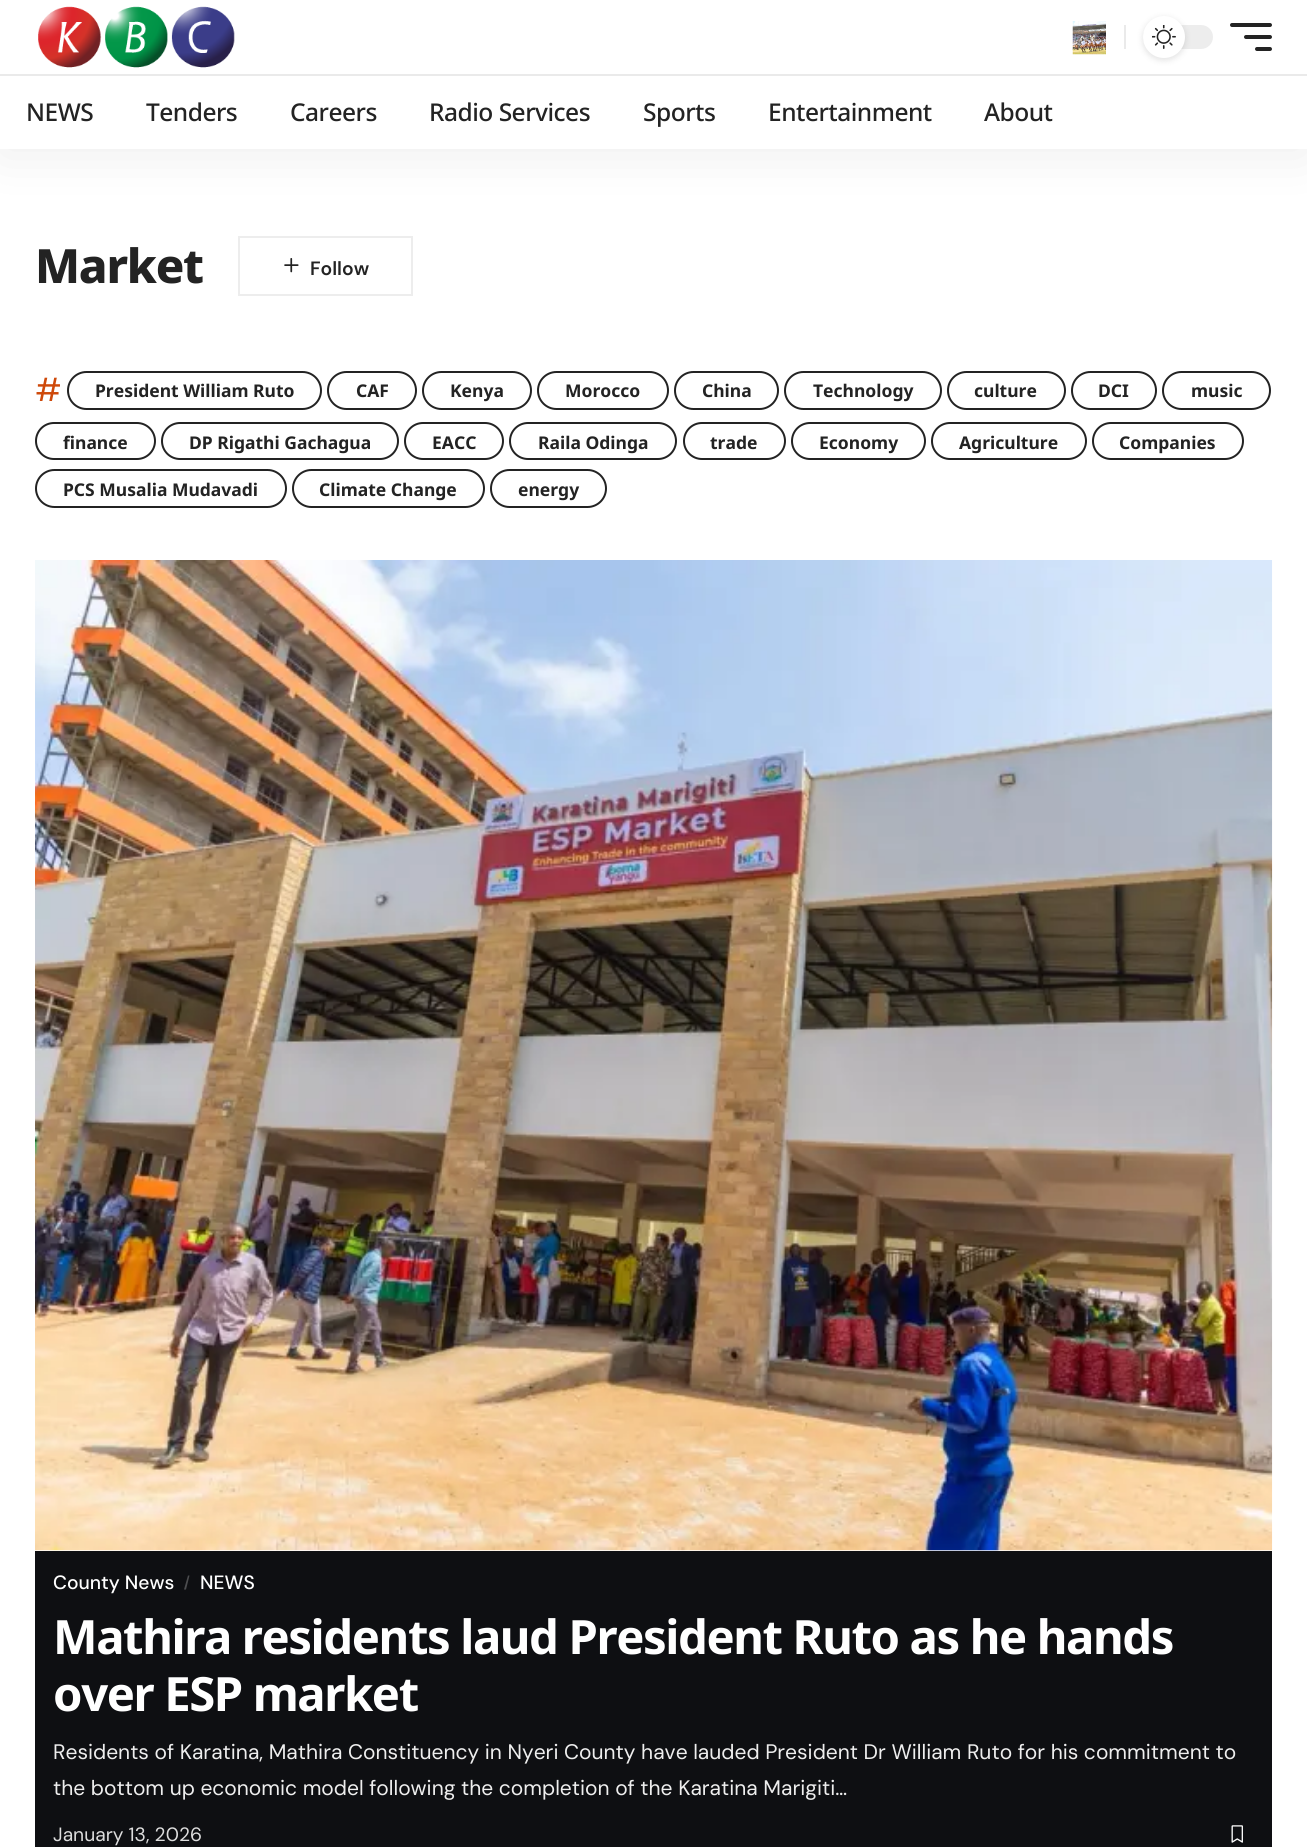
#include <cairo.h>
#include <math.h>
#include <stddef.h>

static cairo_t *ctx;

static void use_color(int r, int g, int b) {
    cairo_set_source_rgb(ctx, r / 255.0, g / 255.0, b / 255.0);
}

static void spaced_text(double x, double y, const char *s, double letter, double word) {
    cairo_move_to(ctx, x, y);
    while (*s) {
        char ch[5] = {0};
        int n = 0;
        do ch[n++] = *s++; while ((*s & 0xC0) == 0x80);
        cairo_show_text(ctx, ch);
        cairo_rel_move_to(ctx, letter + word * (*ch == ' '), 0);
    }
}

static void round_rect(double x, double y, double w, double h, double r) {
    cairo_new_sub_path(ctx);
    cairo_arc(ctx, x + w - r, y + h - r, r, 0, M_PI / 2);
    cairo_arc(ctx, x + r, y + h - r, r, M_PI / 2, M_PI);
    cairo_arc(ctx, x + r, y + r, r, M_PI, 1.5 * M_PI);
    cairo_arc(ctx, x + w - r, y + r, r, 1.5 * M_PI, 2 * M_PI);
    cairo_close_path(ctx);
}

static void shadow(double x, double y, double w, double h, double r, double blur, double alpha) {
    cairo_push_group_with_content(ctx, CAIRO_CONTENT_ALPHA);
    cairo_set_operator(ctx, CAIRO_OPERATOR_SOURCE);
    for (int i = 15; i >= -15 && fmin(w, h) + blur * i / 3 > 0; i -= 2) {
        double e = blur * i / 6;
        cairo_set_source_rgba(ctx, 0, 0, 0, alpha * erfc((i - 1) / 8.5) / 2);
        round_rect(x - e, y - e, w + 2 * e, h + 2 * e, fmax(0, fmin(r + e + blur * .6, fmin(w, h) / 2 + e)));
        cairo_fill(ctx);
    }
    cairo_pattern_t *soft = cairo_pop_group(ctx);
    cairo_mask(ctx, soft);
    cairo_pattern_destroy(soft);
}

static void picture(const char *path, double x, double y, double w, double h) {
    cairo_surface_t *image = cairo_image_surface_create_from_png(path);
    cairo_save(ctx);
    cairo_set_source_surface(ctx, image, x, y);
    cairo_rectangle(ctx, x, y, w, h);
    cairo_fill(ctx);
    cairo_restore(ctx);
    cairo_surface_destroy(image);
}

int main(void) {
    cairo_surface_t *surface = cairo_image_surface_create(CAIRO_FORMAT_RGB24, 1307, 1847);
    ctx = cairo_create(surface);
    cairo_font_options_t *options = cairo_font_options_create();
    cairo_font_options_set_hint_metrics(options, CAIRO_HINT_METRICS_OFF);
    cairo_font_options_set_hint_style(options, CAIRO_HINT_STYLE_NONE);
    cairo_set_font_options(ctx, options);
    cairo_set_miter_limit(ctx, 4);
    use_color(255, 255, 255);
    cairo_paint(ctx);
    use_color(0, 0, 0);
    shadow(0, 7, 1307, 149, 0, 26, 0.07);
    use_color(255, 255, 255);
    cairo_rectangle(ctx, 0, 0, 1307, 149);
    cairo_fill(ctx);
    picture("img1.png", 38, 6, 197, 62);
    picture("img2.png", 1072, 21, 34, 34);
    use_color(234, 234, 234);
    cairo_rectangle(ctx, 1124, 25, 2, 24);
    cairo_fill(ctx);
    use_color(237, 237, 237);
    round_rect(1143, 25, 70, 24, 12);
    cairo_fill(ctx);
    use_color(0, 0, 0);
    shadow(1143, 18, 42, 42, 21, 3.5, 0.12);
    use_color(255, 255, 255);
    cairo_arc(ctx, 1164, 37, 21, 0, 2 * M_PI);
    cairo_fill(ctx);
    picture("img3.png", 1152, 25, 24, 24);
    use_color(35, 35, 35);
    round_rect(1230, 23, 42, 4, 2);
    cairo_fill(ctx);
    round_rect(1244, 35, 28, 4, 2);
    cairo_fill(ctx);
    round_rect(1255, 47, 17, 4, 2);
    cairo_fill(ctx);
    use_color(234, 234, 234);
    cairo_rectangle(ctx, 0, 74, 1307, 2);
    cairo_fill(ctx);
    cairo_select_font_face(ctx, "Noto Sans Medium", CAIRO_FONT_SLANT_NORMAL, CAIRO_FONT_WEIGHT_NORMAL);
    cairo_set_font_size(ctx, 24.5);
    use_color(35, 35, 35);
    spaced_text(26, 121, "NEWS", -0.5, 0);
    spaced_text(146, 121, "Tenders", -0.5, 0);
    spaced_text(290, 121, "Careers", -0.5, 0);
    spaced_text(429, 121, "Radio Services", -0.5, 0);
    spaced_text(643, 121, "Sports", -0.5, 0);
    spaced_text(768, 121, "Entertainment", -0.5, 0);
    spaced_text(984, 121, "About", -0.5, 0);
    cairo_select_font_face(ctx, "Noto Sans ExtraBold", CAIRO_FONT_SLANT_NORMAL, CAIRO_FONT_WEIGHT_NORMAL);
    cairo_set_font_size(ctx, 47.25);
    spaced_text(35, 283, "Market", -1.25, 0);
    cairo_rectangle(ctx, 239, 237, 173, 58);
    use_color(237, 237, 237);
    cairo_stroke(ctx);
    picture("img4.png", 284, 258, 15, 15);
    cairo_select_font_face(ctx, "DM Sans SemiBold", CAIRO_FONT_SLANT_NORMAL, CAIRO_FONT_WEIGHT_NORMAL);
    cairo_set_font_size(ctx, 19.25);
    use_color(35, 35, 35);
    cairo_move_to(ctx, 310, 275);
    cairo_show_text(ctx, "Follow");
    cairo_select_font_face(ctx, "DM Sans", CAIRO_FONT_SLANT_NORMAL, CAIRO_FONT_WEIGHT_NORMAL);
    cairo_set_font_size(ctx, 33);
    use_color(206, 73, 10);
    cairo_move_to(ctx, 35, 401);
    cairo_show_text(ctx, "#");
    round_rect(68, 372, 253, 37, 18.5);
    use_color(35, 35, 35);
    cairo_stroke(ctx);
    cairo_select_font_face(ctx, "Noto Sans", CAIRO_FONT_SLANT_NORMAL, CAIRO_FONT_WEIGHT_BOLD);
    cairo_set_font_size(ctx, 17.5);
    cairo_move_to(ctx, 95, 397);
    cairo_show_text(ctx, "President William Ruto");
    round_rect(328, 372, 88, 37, 18.5);
    cairo_stroke(ctx);
    cairo_move_to(ctx, 356, 397);
    cairo_show_text(ctx, "CAF");
    round_rect(423, 372, 108, 37, 18.5);
    cairo_stroke(ctx);
    cairo_move_to(ctx, 450, 397);
    cairo_show_text(ctx, "Kenya");
    round_rect(538, 372, 130, 37, 18.5);
    cairo_stroke(ctx);
    cairo_move_to(ctx, 565, 397);
    cairo_show_text(ctx, "Morocco");
    round_rect(675, 372, 103, 37, 18.5);
    cairo_stroke(ctx);
    cairo_move_to(ctx, 702, 397);
    cairo_show_text(ctx, "China");
    round_rect(785, 372, 156, 37, 18.5);
    cairo_stroke(ctx);
    cairo_move_to(ctx, 813, 397);
    cairo_show_text(ctx, "Technology");
    round_rect(948, 372, 117, 37, 18.5);
    cairo_stroke(ctx);
    cairo_move_to(ctx, 974, 397);
    cairo_show_text(ctx, "culture");
    round_rect(1072, 372, 84, 37, 18.5);
    cairo_stroke(ctx);
    cairo_move_to(ctx, 1098, 397);
    cairo_show_text(ctx, "DCI");
    round_rect(1163, 372, 107, 37, 18.5);
    cairo_stroke(ctx);
    cairo_move_to(ctx, 1191, 397);
    cairo_show_text(ctx, "music");
    round_rect(36, 423, 119, 36, 18);
    cairo_stroke(ctx);
    cairo_move_to(ctx, 63, 449);
    cairo_show_text(ctx, "finance");
    round_rect(162, 423, 236, 36, 18);
    cairo_stroke(ctx);
    cairo_move_to(ctx, 189, 449);
    cairo_show_text(ctx, "DP Rigathi Gachagua");
    round_rect(405, 423, 98, 36, 18);
    cairo_stroke(ctx);
    cairo_move_to(ctx, 432, 449);
    cairo_show_text(ctx, "EACC");
    round_rect(510, 423, 166, 36, 18);
    cairo_stroke(ctx);
    cairo_move_to(ctx, 538, 449);
    cairo_show_text(ctx, "Raila Odinga");
    round_rect(684, 423, 101, 36, 18);
    cairo_stroke(ctx);
    cairo_move_to(ctx, 710, 449);
    cairo_show_text(ctx, "trade");
    round_rect(792, 423, 133, 36, 18);
    cairo_stroke(ctx);
    cairo_move_to(ctx, 819, 449);
    cairo_show_text(ctx, "Economy");
    round_rect(932, 423, 154, 36, 18);
    cairo_stroke(ctx);
    cairo_move_to(ctx, 959, 449);
    cairo_show_text(ctx, "Agriculture");
    round_rect(1093, 423, 150, 36, 18);
    cairo_stroke(ctx);
    cairo_move_to(ctx, 1119, 449);
    cairo_show_text(ctx, "Companies");
    round_rect(36, 470, 250, 37, 18.5);
    cairo_stroke(ctx);
    cairo_move_to(ctx, 63, 496);
    cairo_show_text(ctx, "PCS Musalia Mudavadi");
    round_rect(293, 470, 191, 37, 18.5);
    cairo_stroke(ctx);
    cairo_move_to(ctx, 319, 496);
    cairo_show_text(ctx, "Climate Change");
    round_rect(491, 470, 115, 37, 18.5);
    cairo_stroke(ctx);
    cairo_move_to(ctx, 518, 496);
    cairo_show_text(ctx, "energy");
    picture("img5.png", 35, 560, 1238, 991);
    use_color(14, 15, 18);
    cairo_rectangle(ctx, 35, 1551, 1237, 296);
    cairo_fill(ctx);
    cairo_select_font_face(ctx, "DM Sans Medium", CAIRO_FONT_SLANT_NORMAL, CAIRO_FONT_WEIGHT_NORMAL);
    cairo_set_font_size(ctx, 19.25);
    use_color(255, 255, 255);
    cairo_move_to(ctx, 53, 1589);
    cairo_show_text(ctx, "County News");
    use_color(76, 77, 79);
    cairo_new_path(ctx);
    cairo_move_to(ctx, 188, 1575.5);
    cairo_line_to(ctx, 189.5, 1575.5);
    cairo_line_to(ctx, 186, 1589.5);
    cairo_line_to(ctx, 184, 1589.5);
    cairo_close_path(ctx);
    cairo_fill(ctx);
    use_color(255, 255, 255);
    cairo_move_to(ctx, 200, 1589);
    cairo_show_text(ctx, "NEWS");
    cairo_select_font_face(ctx, "Noto Sans", CAIRO_FONT_SLANT_NORMAL, CAIRO_FONT_WEIGHT_BOLD);
    cairo_set_font_size(ctx, 47.25);
    spaced_text(53, 1654, "Mathira residents laud President Ruto as he hands", -1.4, 0);
    spaced_text(53, 1711, "over ESP market", -1.4, 0);
    cairo_select_font_face(ctx, "DM Sans", CAIRO_FONT_SLANT_NORMAL, CAIRO_FONT_WEIGHT_NORMAL);
    cairo_set_font_size(ctx, 21);
    use_color(238, 238, 238);
    cairo_move_to(ctx, 53, 1759);
    cairo_show_text(ctx, "Residents of Karatina, Mathira Constituency in Nyeri County have lauded President Dr William Ruto for his commitment to");
    cairo_move_to(ctx, 53, 1795);
    cairo_show_text(ctx, "the bottom up economic model following the completion of the Karatina Marigiti…");
    cairo_set_font_size(ctx, 19.25);
    use_color(221, 221, 221);
    cairo_move_to(ctx, 53, 1841);
    cairo_show_text(ctx, "January 13, 2026");
    picture("img6.png", 1231, 1825, 12, 18);
    cairo_surface_write_to_png(surface, "result.png");
    cairo_font_options_destroy(options);
    cairo_destroy(ctx);
    cairo_surface_destroy(surface);
    return 0;
}
